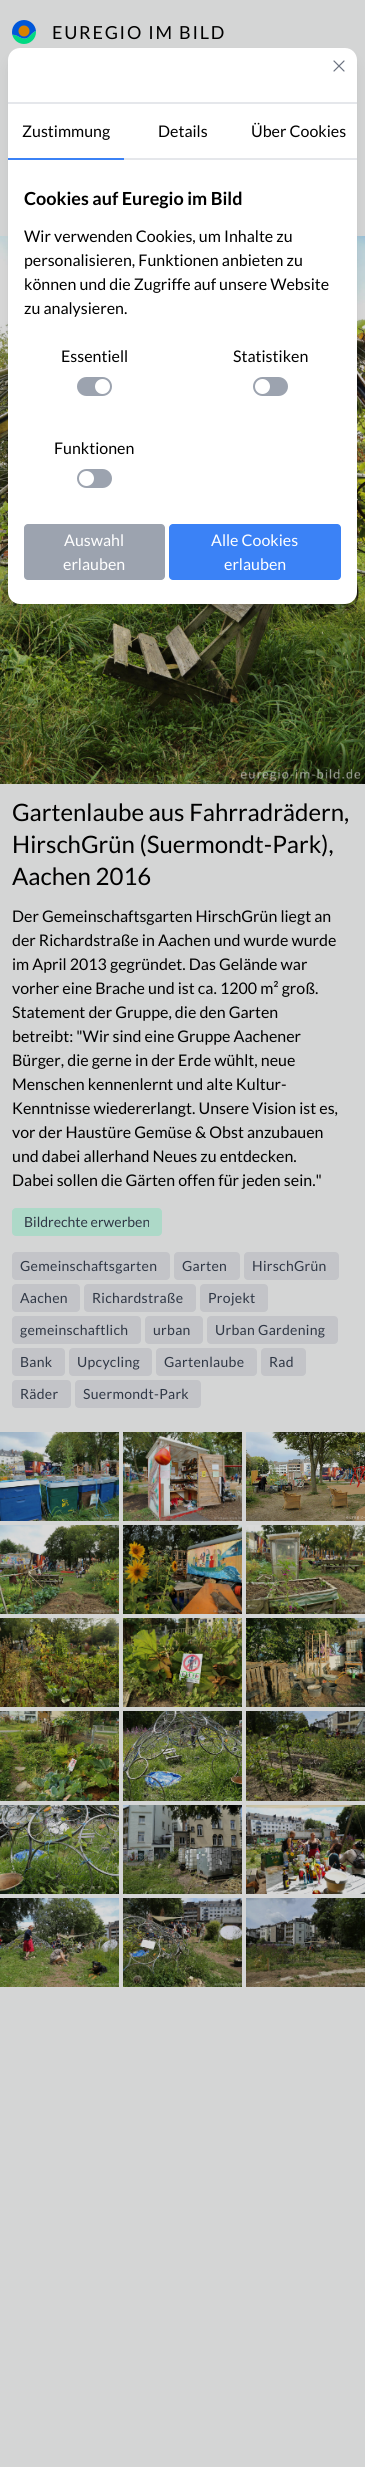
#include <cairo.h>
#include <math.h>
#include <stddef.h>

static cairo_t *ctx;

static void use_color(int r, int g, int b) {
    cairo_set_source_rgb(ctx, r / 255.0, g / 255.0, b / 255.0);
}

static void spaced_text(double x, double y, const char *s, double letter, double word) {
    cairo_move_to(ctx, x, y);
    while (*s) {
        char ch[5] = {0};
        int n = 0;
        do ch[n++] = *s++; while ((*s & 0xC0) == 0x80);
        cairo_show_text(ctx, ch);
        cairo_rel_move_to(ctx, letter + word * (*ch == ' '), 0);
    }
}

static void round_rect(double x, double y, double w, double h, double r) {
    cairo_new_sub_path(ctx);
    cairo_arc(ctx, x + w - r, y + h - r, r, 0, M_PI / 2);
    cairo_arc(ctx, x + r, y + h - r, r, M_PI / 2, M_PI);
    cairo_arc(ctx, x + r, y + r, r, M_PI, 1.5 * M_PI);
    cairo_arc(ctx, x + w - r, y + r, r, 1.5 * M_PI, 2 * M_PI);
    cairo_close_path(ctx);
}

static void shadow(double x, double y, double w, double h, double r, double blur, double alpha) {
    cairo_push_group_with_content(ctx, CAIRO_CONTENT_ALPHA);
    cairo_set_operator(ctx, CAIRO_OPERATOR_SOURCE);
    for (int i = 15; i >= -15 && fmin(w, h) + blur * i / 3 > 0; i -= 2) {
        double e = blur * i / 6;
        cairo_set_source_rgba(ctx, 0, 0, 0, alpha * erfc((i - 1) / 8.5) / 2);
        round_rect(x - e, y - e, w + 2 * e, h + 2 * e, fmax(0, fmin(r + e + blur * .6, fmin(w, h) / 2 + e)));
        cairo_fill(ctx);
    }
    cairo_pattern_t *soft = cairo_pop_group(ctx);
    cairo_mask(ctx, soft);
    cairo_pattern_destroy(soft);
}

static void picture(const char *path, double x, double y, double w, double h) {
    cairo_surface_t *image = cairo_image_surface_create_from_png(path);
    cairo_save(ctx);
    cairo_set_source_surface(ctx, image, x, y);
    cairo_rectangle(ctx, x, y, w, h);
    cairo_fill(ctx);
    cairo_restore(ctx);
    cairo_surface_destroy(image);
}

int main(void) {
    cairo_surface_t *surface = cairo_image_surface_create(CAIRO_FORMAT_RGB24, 365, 2467);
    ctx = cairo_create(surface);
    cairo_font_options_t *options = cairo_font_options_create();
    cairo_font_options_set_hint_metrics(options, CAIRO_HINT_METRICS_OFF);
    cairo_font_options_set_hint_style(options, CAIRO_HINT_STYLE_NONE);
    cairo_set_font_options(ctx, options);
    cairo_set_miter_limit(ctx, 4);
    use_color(212, 213, 213);
    cairo_paint(ctx);
    picture("img1.png", 12, 20, 24, 24);
    cairo_select_font_face(ctx, "Lato", CAIRO_FONT_SLANT_NORMAL, CAIRO_FONT_WEIGHT_NORMAL);
    cairo_set_font_size(ctx, 18);
    use_color(0, 0, 0);
    spaced_text(52, 39, "EUREGIO IM BILD", 1.75, 0);
    picture("img2.png", 0, 236, 365, 548);
    cairo_set_font_size(ctx, 24);
    cairo_move_to(ctx, 12, 821);
    cairo_show_text(ctx, "Gartenlaube aus Fahrradrädern,");
    cairo_move_to(ctx, 12, 853);
    cairo_show_text(ctx, "HirschGrün (Suermondt-Park),");
    cairo_move_to(ctx, 12, 885);
    cairo_show_text(ctx, "Aachen 2016");
    cairo_set_font_size(ctx, 16);
    cairo_move_to(ctx, 12, 922);
    cairo_show_text(ctx, "Der Gemeinschaftsgarten HirschGrün liegt an");
    cairo_move_to(ctx, 12, 946);
    cairo_show_text(ctx, "der Richardstraße in Aachen und wurde wurde");
    cairo_move_to(ctx, 12, 970);
    cairo_show_text(ctx, "im April 2013 gegründet. Das Gelände war");
    cairo_move_to(ctx, 12, 994);
    cairo_show_text(ctx, "vorher eine Brache und ist ca. 1200 m² groß.");
    cairo_move_to(ctx, 12, 1018);
    cairo_show_text(ctx, "Statement der Gruppe, die den Garten");
    cairo_move_to(ctx, 12, 1042);
    cairo_show_text(ctx, "betreibt: \"Wir sind eine Gruppe Aachener");
    cairo_move_to(ctx, 12, 1066);
    cairo_show_text(ctx, "Bürger, die gerne in der Erde wühlt, neue");
    cairo_move_to(ctx, 12, 1090);
    cairo_show_text(ctx, "Menschen kennenlernt und alte Kultur-");
    cairo_move_to(ctx, 12, 1114);
    cairo_show_text(ctx, "Kenntnisse wiedererlangt. Unsere Vision ist es,");
    cairo_move_to(ctx, 12, 1138);
    cairo_show_text(ctx, "vor der Haustüre Gemüse & Obst anzubauen");
    cairo_move_to(ctx, 12, 1162);
    cairo_show_text(ctx, "und dabei allerhand Neues zu entdecken.");
    cairo_move_to(ctx, 12, 1186);
    cairo_show_text(ctx, "Dabei sollen die Gärten offen für jeden sein.\"");
    use_color(173, 217, 200);
    round_rect(12, 1208, 150, 28, 4);
    cairo_fill(ctx);
    cairo_set_font_size(ctx, 14);
    use_color(47, 55, 69);
    cairo_move_to(ctx, 24, 1227);
    cairo_show_text(ctx, "Bildrechte erwerben");
    use_color(195, 196, 200);
    round_rect(12, 1252, 158, 28, 4);
    cairo_fill(ctx);
    use_color(47, 55, 69);
    spaced_text(20, 1271, "Gemeinschaftsgarten", 0.3, 0);
    use_color(195, 196, 200);
    round_rect(174, 1252, 66, 28, 4);
    cairo_fill(ctx);
    use_color(47, 55, 69);
    spaced_text(182, 1271, "Garten", 0.3, 0);
    use_color(195, 196, 200);
    round_rect(244, 1252, 95, 28, 4);
    cairo_fill(ctx);
    use_color(47, 55, 69);
    spaced_text(252, 1271, "HirschGrün", 0.3, 0);
    use_color(195, 196, 200);
    round_rect(12, 1284, 68, 28, 4);
    cairo_fill(ctx);
    use_color(47, 55, 69);
    spaced_text(20, 1303, "Aachen", 0.3, 0);
    use_color(195, 196, 200);
    round_rect(84, 1284, 112, 28, 4);
    cairo_fill(ctx);
    use_color(47, 55, 69);
    spaced_text(92, 1303, "Richardstraße", 0.3, 0);
    use_color(195, 196, 200);
    round_rect(200, 1284, 68, 28, 4);
    cairo_fill(ctx);
    use_color(47, 55, 69);
    spaced_text(208, 1303, "Projekt", 0.3, 0);
    use_color(195, 196, 200);
    round_rect(12, 1316, 129, 28, 4);
    cairo_fill(ctx);
    use_color(47, 55, 69);
    spaced_text(20, 1335, "gemeinschaftlich", 0.3, 0);
    use_color(195, 196, 200);
    round_rect(145, 1316, 58, 28, 4);
    cairo_fill(ctx);
    use_color(47, 55, 69);
    spaced_text(153, 1335, "urban", 0.3, 0);
    use_color(195, 196, 200);
    round_rect(207, 1316, 131, 28, 4);
    cairo_fill(ctx);
    use_color(47, 55, 69);
    spaced_text(215, 1335, "Urban Gardening", 0.3, 0);
    use_color(195, 196, 200);
    round_rect(12, 1348, 53, 28, 4);
    cairo_fill(ctx);
    use_color(47, 55, 69);
    spaced_text(20, 1367, "Bank", 0.3, 0);
    use_color(195, 196, 200);
    round_rect(69, 1348, 83, 28, 4);
    cairo_fill(ctx);
    use_color(47, 55, 69);
    spaced_text(77, 1367, "Upcycling", 0.3, 0);
    use_color(195, 196, 200);
    round_rect(156, 1348, 101, 28, 4);
    cairo_fill(ctx);
    use_color(47, 55, 69);
    spaced_text(164, 1367, "Gartenlaube", 0.3, 0);
    use_color(195, 196, 200);
    round_rect(261, 1348, 45, 28, 4);
    cairo_fill(ctx);
    use_color(47, 55, 69);
    spaced_text(269, 1367, "Rad", 0.3, 0);
    use_color(195, 196, 200);
    round_rect(12, 1380, 59, 28, 4);
    cairo_fill(ctx);
    use_color(47, 55, 69);
    spaced_text(20, 1399, "Räder", 0.3, 0);
    use_color(195, 196, 200);
    round_rect(75, 1380, 126, 28, 4);
    cairo_fill(ctx);
    use_color(47, 55, 69);
    spaced_text(83, 1399, "Suermondt-Park", 0.3, 0);
    picture("img3.png", 0, 1432, 119, 89);
    picture("img4.png", 123, 1432, 119, 89);
    picture("img5.png", 246, 1432, 119, 89);
    picture("img6.png", 0, 1525, 119, 89);
    picture("img7.png", 123, 1525, 119, 89);
    picture("img8.png", 246, 1525, 119, 89);
    picture("img9.png", 0, 1618, 119, 89);
    picture("img10.png", 123, 1618, 119, 89);
    picture("img11.png", 246, 1618, 119, 89);
    picture("img12.png", 0, 1711, 119, 90);
    picture("img13.png", 123, 1711, 119, 90);
    picture("img14.png", 246, 1711, 119, 90);
    picture("img15.png", 0, 1805, 119, 89);
    picture("img16.png", 123, 1805, 119, 89);
    picture("img17.png", 246, 1805, 119, 89);
    picture("img18.png", 0, 1898, 119, 89);
    picture("img19.png", 123, 1898, 119, 89);
    picture("img20.png", 246, 1898, 119, 89);
    use_color(0, 0, 0);
    shadow(12, 56, 341, 548, 8, 3, 0.1);
    shadow(11, 61, 343, 550, 9, 7.5, 0.1);
    use_color(255, 255, 255);
    round_rect(8, 48, 349, 556, 12);
    cairo_fill(ctx);
    use_color(229, 231, 235);
    cairo_rectangle(ctx, 8, 102, 349, 2);
    cairo_fill(ctx);
    cairo_new_path(ctx);
    cairo_move_to(ctx, 334, 71);
    cairo_line_to(ctx, 344, 61);
    cairo_move_to(ctx, 334, 61);
    cairo_line_to(ctx, 344, 71);
    use_color(107, 114, 128);
    cairo_set_line_width(ctx, 1.2);
    cairo_set_line_cap(ctx, CAIRO_LINE_CAP_ROUND);
    cairo_set_line_join(ctx, CAIRO_LINE_JOIN_ROUND);
    cairo_stroke(ctx);
    use_color(59, 130, 246);
    cairo_rectangle(ctx, 8, 158, 116, 2);
    cairo_fill(ctx);
    cairo_set_font_size(ctx, 16);
    use_color(0, 0, 0);
    cairo_move_to(ctx, 22, 137);
    cairo_show_text(ctx, "Zustimmung");
    use_color(229, 231, 235);
    cairo_rectangle(ctx, 124, 158, 233, 2);
    cairo_fill(ctx);
    use_color(0, 0, 0);
    cairo_move_to(ctx, 158, 137);
    cairo_show_text(ctx, "Details");
    cairo_move_to(ctx, 251, 137);
    cairo_show_text(ctx, "Über Cookies");
    cairo_select_font_face(ctx, "Lato", CAIRO_FONT_SLANT_NORMAL, CAIRO_FONT_WEIGHT_BOLD);
    cairo_set_font_size(ctx, 18);
    cairo_move_to(ctx, 24, 205);
    cairo_show_text(ctx, "Cookies auf Euregio im Bild");
    cairo_select_font_face(ctx, "Lato", CAIRO_FONT_SLANT_NORMAL, CAIRO_FONT_WEIGHT_NORMAL);
    cairo_set_font_size(ctx, 16);
    cairo_move_to(ctx, 24, 242);
    cairo_show_text(ctx, "Wir verwenden Cookies, um Inhalte zu");
    cairo_move_to(ctx, 24, 266);
    cairo_show_text(ctx, "personalisieren, Funktionen anbieten zu");
    cairo_move_to(ctx, 24, 290);
    cairo_show_text(ctx, "können und die Zugriffe auf unsere Website");
    cairo_move_to(ctx, 24, 314);
    cairo_show_text(ctx, "zu analysieren.");
    cairo_move_to(ctx, 61, 362);
    cairo_show_text(ctx, "Essentiell");
    use_color(156, 163, 175);
    round_rect(77, 377, 35, 19, 9.5);
    cairo_fill(ctx);
    use_color(255, 255, 255);
    cairo_arc(ctx, 102.5, 386.5, 7.5, 0, 2 * M_PI);
    cairo_fill(ctx);
    use_color(0, 0, 0);
    cairo_move_to(ctx, 233, 362);
    cairo_show_text(ctx, "Statistiken");
    use_color(156, 163, 175);
    round_rect(253, 377, 35, 19, 9.5);
    cairo_fill(ctx);
    use_color(255, 255, 255);
    cairo_arc(ctx, 262.5, 386.5, 7.5, 0, 2 * M_PI);
    cairo_fill(ctx);
    use_color(0, 0, 0);
    cairo_move_to(ctx, 54, 454);
    cairo_show_text(ctx, "Funktionen");
    use_color(156, 163, 175);
    round_rect(77, 469, 35, 19, 9.5);
    cairo_fill(ctx);
    use_color(255, 255, 255);
    cairo_arc(ctx, 86.5, 478.5, 7.5, 0, 2 * M_PI);
    cairo_fill(ctx);
    use_color(156, 163, 175);
    round_rect(24, 524, 141, 56, 4);
    cairo_fill(ctx);
    use_color(255, 255, 255);
    cairo_move_to(ctx, 64, 546);
    cairo_show_text(ctx, "Auswahl");
    cairo_move_to(ctx, 63, 570);
    cairo_show_text(ctx, "erlauben");
    use_color(59, 130, 246);
    round_rect(169, 524, 172, 56, 4);
    cairo_fill(ctx);
    use_color(255, 255, 255);
    cairo_move_to(ctx, 211, 546);
    cairo_show_text(ctx, "Alle Cookies");
    cairo_move_to(ctx, 224, 570);
    cairo_show_text(ctx, "erlauben");
    cairo_surface_write_to_png(surface, "result.png");
    cairo_font_options_destroy(options);
    cairo_destroy(ctx);
    cairo_surface_destroy(surface);
    return 0;
}
